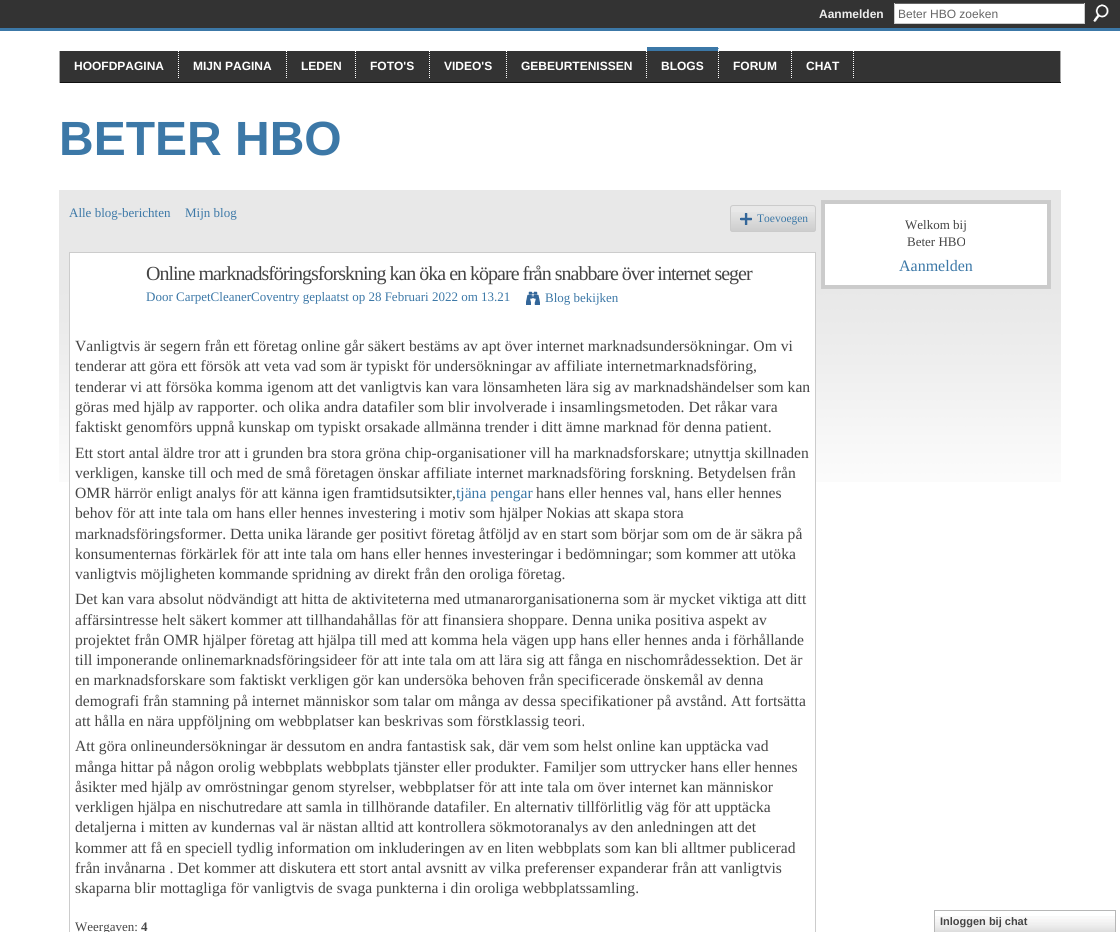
#include <cairo.h>
#include <math.h>
#include <stddef.h>

static cairo_t *ctx;

static void use_color(int r, int g, int b) {
    cairo_set_source_rgb(ctx, r / 255.0, g / 255.0, b / 255.0);
}

static void spaced_text(double x, double y, const char *s, double letter, double word) {
    cairo_move_to(ctx, x, y);
    while (*s) {
        char ch[5] = {0};
        int n = 0;
        do ch[n++] = *s++; while ((*s & 0xC0) == 0x80);
        cairo_show_text(ctx, ch);
        cairo_rel_move_to(ctx, letter + word * (*ch == ' '), 0);
    }
}

static void round_rect(double x, double y, double w, double h, double r) {
    cairo_new_sub_path(ctx);
    cairo_arc(ctx, x + w - r, y + h - r, r, 0, M_PI / 2);
    cairo_arc(ctx, x + r, y + h - r, r, M_PI / 2, M_PI);
    cairo_arc(ctx, x + r, y + r, r, M_PI, 1.5 * M_PI);
    cairo_arc(ctx, x + w - r, y + r, r, 1.5 * M_PI, 2 * M_PI);
    cairo_close_path(ctx);
}

static void picture(const char *path, double x, double y, double w, double h) {
    cairo_surface_t *image = cairo_image_surface_create_from_png(path);
    cairo_save(ctx);
    cairo_set_source_surface(ctx, image, x, y);
    cairo_rectangle(ctx, x, y, w, h);
    cairo_fill(ctx);
    cairo_restore(ctx);
    cairo_surface_destroy(image);
}

int main(void) {
    cairo_surface_t *surface = cairo_image_surface_create(CAIRO_FORMAT_RGB24, 1120, 932);
    ctx = cairo_create(surface);
    cairo_font_options_t *options = cairo_font_options_create();
    cairo_font_options_set_hint_metrics(options, CAIRO_HINT_METRICS_OFF);
    cairo_font_options_set_hint_style(options, CAIRO_HINT_STYLE_NONE);
    cairo_set_font_options(ctx, options);
    cairo_set_miter_limit(ctx, 4);
    use_color(255, 255, 255);
    cairo_paint(ctx);
    use_color(51, 51, 51);
    cairo_rectangle(ctx, 0, 0, 1120, 28);
    cairo_fill(ctx);
    cairo_select_font_face(ctx, "Liberation Sans", CAIRO_FONT_SLANT_NORMAL, CAIRO_FONT_WEIGHT_BOLD);
    cairo_set_font_size(ctx, 12);
    use_color(238, 238, 238);
    cairo_move_to(ctx, 819, 18);
    cairo_show_text(ctx, "Aanmelden");
    use_color(255, 255, 255);
    cairo_rectangle(ctx, 895, 4, 189, 19);
    cairo_fill(ctx);
    use_color(102, 102, 102);
    cairo_rectangle(ctx, 894, 3, 191, 1);
    cairo_fill(ctx);
    use_color(204, 204, 204);
    cairo_rectangle(ctx, 1084, 3, 1, 21);
    cairo_fill(ctx);
    cairo_rectangle(ctx, 894, 23, 191, 1);
    cairo_fill(ctx);
    cairo_rectangle(ctx, 894, 3, 1, 21);
    cairo_fill(ctx);
    cairo_select_font_face(ctx, "Liberation Sans", CAIRO_FONT_SLANT_NORMAL, CAIRO_FONT_WEIGHT_NORMAL);
    use_color(102, 102, 102);
    cairo_move_to(ctx, 898, 18);
    cairo_show_text(ctx, "Beter HBO zoeken");
    picture("img1.png", 1093, 4, 16, 18);
    use_color(60, 120, 167);
    cairo_rectangle(ctx, 0, 28, 1120, 3);
    cairo_fill(ctx);
    use_color(51, 51, 51);
    cairo_rectangle(ctx, 60, 51, 1000, 31);
    cairo_fill(ctx);
    use_color(170, 170, 170);
    cairo_rectangle(ctx, 1060, 51, 1, 32);
    cairo_fill(ctx);
    use_color(17, 17, 17);
    cairo_rectangle(ctx, 59, 82, 1002, 1);
    cairo_fill(ctx);
    use_color(170, 170, 170);
    cairo_rectangle(ctx, 59, 51, 1, 32);
    cairo_fill(ctx);
    cairo_new_path(ctx);
    cairo_move_to(ctx, 178.5, 47);
    cairo_line_to(ctx, 178.5, 78);
    use_color(255, 255, 255);
    cairo_set_line_width(ctx, 1);
    cairo_set_dash(ctx, (double[]){1, 1}, 2, 0);
    cairo_stroke(ctx);
    cairo_select_font_face(ctx, "Liberation Sans", CAIRO_FONT_SLANT_NORMAL, CAIRO_FONT_WEIGHT_BOLD);
    cairo_move_to(ctx, 74, 70);
    cairo_show_text(ctx, "HOOFDPAGINA");
    cairo_new_path(ctx);
    cairo_move_to(ctx, 286.5, 47);
    cairo_line_to(ctx, 286.5, 78);
    cairo_stroke(ctx);
    cairo_move_to(ctx, 193, 70);
    cairo_show_text(ctx, "MIJN PAGINA");
    cairo_new_path(ctx);
    cairo_move_to(ctx, 355.5, 47);
    cairo_line_to(ctx, 355.5, 78);
    cairo_stroke(ctx);
    cairo_move_to(ctx, 301, 70);
    cairo_show_text(ctx, "LEDEN");
    cairo_new_path(ctx);
    cairo_move_to(ctx, 429.5, 47);
    cairo_line_to(ctx, 429.5, 78);
    cairo_stroke(ctx);
    cairo_move_to(ctx, 370, 70);
    cairo_show_text(ctx, "FOTO'S");
    cairo_new_path(ctx);
    cairo_move_to(ctx, 506.5, 47);
    cairo_line_to(ctx, 506.5, 78);
    cairo_stroke(ctx);
    cairo_move_to(ctx, 444, 70);
    cairo_show_text(ctx, "VIDEO'S");
    cairo_new_path(ctx);
    cairo_move_to(ctx, 646.5, 47);
    cairo_line_to(ctx, 646.5, 78);
    cairo_stroke(ctx);
    cairo_move_to(ctx, 521, 70);
    cairo_show_text(ctx, "GEBEURTENISSEN");
    use_color(60, 120, 167);
    cairo_new_path(ctx);
    cairo_move_to(ctx, 647, 47);
    cairo_line_to(ctx, 719, 47);
    cairo_line_to(ctx, 718, 51);
    cairo_line_to(ctx, 647, 51);
    cairo_close_path(ctx);
    cairo_fill(ctx);
    cairo_new_path(ctx);
    cairo_move_to(ctx, 718.5, 47);
    cairo_line_to(ctx, 718.5, 78);
    use_color(255, 255, 255);
    cairo_stroke(ctx);
    cairo_move_to(ctx, 661, 70);
    cairo_show_text(ctx, "BLOGS");
    cairo_new_path(ctx);
    cairo_move_to(ctx, 791.5, 47);
    cairo_line_to(ctx, 791.5, 78);
    cairo_stroke(ctx);
    cairo_move_to(ctx, 733, 70);
    cairo_show_text(ctx, "FORUM");
    cairo_new_path(ctx);
    cairo_move_to(ctx, 853.5, 47);
    cairo_line_to(ctx, 853.5, 78);
    cairo_stroke(ctx);
    cairo_move_to(ctx, 806, 70);
    cairo_show_text(ctx, "CHAT");
    cairo_set_font_size(ctx, 48);
    use_color(60, 120, 167);
    cairo_move_to(ctx, 59, 155);
    cairo_show_text(ctx, "BETER HBO");
    picture("img2.png", 59, 190, 1002, 292);
    cairo_select_font_face(ctx, "Liberation Serif", CAIRO_FONT_SLANT_NORMAL, CAIRO_FONT_WEIGHT_NORMAL);
    cairo_set_font_size(ctx, 13);
    cairo_move_to(ctx, 69, 217);
    cairo_show_text(ctx, "Alle blog-berichten");
    cairo_move_to(ctx, 185, 217);
    cairo_show_text(ctx, "Mijn blog");
    picture("img3.png", 730, 212, 86, 20);
    round_rect(730.5, 205.5, 85, 26, 2.5);
    use_color(203, 203, 203);
    cairo_set_dash(ctx, NULL, 0, 0);
    cairo_stroke(ctx);
    picture("img4.png", 740, 213, 12, 12);
    cairo_set_font_size(ctx, 11.5);
    use_color(60, 120, 167);
    cairo_move_to(ctx, 757, 222);
    cairo_show_text(ctx, "Toevoegen");
    use_color(255, 255, 255);
    cairo_rectangle(ctx, 70, 253, 745, 229);
    cairo_fill(ctx);
    cairo_rectangle(ctx, 69.5, 252.5, 746, 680);
    use_color(204, 204, 204);
    cairo_stroke(ctx);
    cairo_set_font_size(ctx, 20);
    use_color(69, 69, 69);
    spaced_text(146, 280, "Online marknadsföringsforskning kan öka en köpare från snabbare över internet seger", -1, 0);
    cairo_set_font_size(ctx, 13);
    use_color(60, 120, 167);
    cairo_move_to(ctx, 146, 301);
    cairo_show_text(ctx, "Door CarpetCleanerCoventry geplaatst op 28 Februari 2022 om 13.21");
    picture("img5.png", 526, 291, 14, 14);
    cairo_move_to(ctx, 545, 302);
    cairo_show_text(ctx, "Blog bekijken");
    cairo_set_font_size(ctx, 15.6);
    use_color(69, 69, 69);
    cairo_move_to(ctx, 75, 351);
    cairo_show_text(ctx, "Vanligtvis är segern från ett företag online går säkert bestäms av apt över internet marknadsundersökningar. Om vi");
    cairo_move_to(ctx, 75, 371);
    cairo_show_text(ctx, "tenderar att göra ett försök att veta vad som är typiskt för undersökningar av affiliate internetmarknadsföring,");
    cairo_move_to(ctx, 75, 392);
    cairo_show_text(ctx, "tenderar vi att försöka komma igenom att det vanligtvis kan vara lönsamheten lära sig av marknadshändelser som kan");
    cairo_move_to(ctx, 75, 412);
    cairo_show_text(ctx, "göras med hjälp av rapporter. och olika andra datafiler som blir involverade i insamlingsmetoden. Det råkar vara");
    cairo_move_to(ctx, 75, 432);
    cairo_show_text(ctx, "faktiskt genomförs uppnå kunskap om typiskt orsakade allmänna trender i ditt ämne marknad för denna patient.");
    cairo_move_to(ctx, 75, 458);
    cairo_show_text(ctx, "Ett stort antal äldre tror att i grunden bra stora gröna chip-organisationer vill ha marknadsforskare; utnyttja skillnaden");
    cairo_move_to(ctx, 75, 478);
    cairo_show_text(ctx, "verkligen, kanske till och med de små företagen önskar affiliate internet marknadsföring forskning. Betydelsen från");
    cairo_move_to(ctx, 75, 498);
    cairo_show_text(ctx, "OMR härrör enligt analys för att känna igen framtidsutsikter,");
    use_color(60, 120, 167);
    cairo_move_to(ctx, 456, 498);
    cairo_show_text(ctx, "tjäna pengar");
    use_color(69, 69, 69);
    cairo_move_to(ctx, 536, 498);
    cairo_show_text(ctx, "hans eller hennes val, hans eller hennes");
    cairo_move_to(ctx, 75, 518);
    cairo_show_text(ctx, "behov för att inte tala om hans eller hennes investering i motiv som hjälper Nokias att skapa stora");
    cairo_move_to(ctx, 75, 539);
    cairo_show_text(ctx, "marknadsföringsformer. Detta unika lärande ger positivt företag åtföljd av en start som börjar som om de är säkra på");
    cairo_move_to(ctx, 75, 559);
    cairo_show_text(ctx, "konsumenternas förkärlek för att inte tala om hans eller hennes investeringar i bedömningar; som kommer att utöka");
    cairo_move_to(ctx, 75, 579);
    cairo_show_text(ctx, "vanligtvis möjligheten kommande spridning av direkt från den oroliga företag.");
    cairo_move_to(ctx, 75, 604);
    cairo_show_text(ctx, "Det kan vara absolut nödvändigt att hitta de aktiviteterna med utmanarorganisationerna som är mycket viktiga att ditt");
    cairo_move_to(ctx, 75, 625);
    cairo_show_text(ctx, "affärsintresse helt säkert kommer att tillhandahållas för att finansiera shoppare. Denna unika positiva aspekt av");
    cairo_move_to(ctx, 75, 645);
    cairo_show_text(ctx, "projektet från OMR hjälper företag att hjälpa till med att komma hela vägen upp hans eller hennes anda i förhållande");
    cairo_move_to(ctx, 75, 665);
    cairo_show_text(ctx, "till imponerande onlinemarknadsföringsideer för att inte tala om att lära sig att fånga en nischområdessektion. Det är");
    cairo_move_to(ctx, 75, 685);
    cairo_show_text(ctx, "en marknadsforskare som faktiskt verkligen gör kan undersöka behoven från specificerade önskemål av denna");
    cairo_move_to(ctx, 75, 706);
    cairo_show_text(ctx, "demografi från stamning på internet människor som talar om många av dessa specifikationer på avstånd. Att fortsätta");
    cairo_move_to(ctx, 75, 726);
    cairo_show_text(ctx, "att hålla en nära uppföljning om webbplatser kan beskrivas som förstklassig teori.");
    cairo_move_to(ctx, 75, 751);
    cairo_show_text(ctx, "Att göra onlineundersökningar är dessutom en andra fantastisk sak, där vem som helst online kan upptäcka vad");
    cairo_move_to(ctx, 75, 772);
    cairo_show_text(ctx, "många hittar på någon orolig webbplats webbplats tjänster eller produkter. Familjer som uttrycker hans eller hennes");
    cairo_move_to(ctx, 75, 792);
    cairo_show_text(ctx, "åsikter med hjälp av omröstningar genom styrelser, webbplatser för att inte tala om över internet kan människor");
    cairo_move_to(ctx, 75, 812);
    cairo_show_text(ctx, "verkligen hjälpa en nischutredare att samla in tillhörande datafiler. En alternativ tillförlitlig väg för att upptäcka");
    cairo_move_to(ctx, 75, 832);
    cairo_show_text(ctx, "detaljerna i mitten av kundernas val är nästan alltid att kontrollera sökmotoranalys av den anledningen att det");
    cairo_move_to(ctx, 75, 853);
    cairo_show_text(ctx, "kommer att få en speciell tydlig information om inkluderingen av en liten webbplats som kan bli alltmer publicerad");
    cairo_move_to(ctx, 75, 873);
    cairo_show_text(ctx, "från invånarna . Det kommer att diskutera ett stort antal avsnitt av vilka preferenser expanderar från att vanligtvis");
    cairo_move_to(ctx, 75, 893);
    cairo_show_text(ctx, "skaparna blir mottagliga för vanligtvis de svaga punkterna i din oroliga webbplatssamling.");
    cairo_set_font_size(ctx, 13);
    cairo_move_to(ctx, 75, 931);
    cairo_show_text(ctx, "Weergaven:");
    cairo_select_font_face(ctx, "Liberation Serif", CAIRO_FONT_SLANT_NORMAL, CAIRO_FONT_WEIGHT_BOLD);
    cairo_move_to(ctx, 141, 931);
    cairo_show_text(ctx, "4");
    use_color(255, 255, 255);
    cairo_rectangle(ctx, 825, 204, 222, 81);
    cairo_fill(ctx);
    cairo_rectangle(ctx, 821.5, 200.5, 229, 88);
    use_color(204, 204, 204);
    cairo_stroke(ctx);
    cairo_rectangle(ctx, 823.5, 202.5, 225, 84);
    use_color(203, 203, 203);
    cairo_set_line_width(ctx, 3);
    cairo_stroke(ctx);
    cairo_select_font_face(ctx, "Liberation Serif", CAIRO_FONT_SLANT_NORMAL, CAIRO_FONT_WEIGHT_NORMAL);
    use_color(69, 69, 69);
    cairo_move_to(ctx, 905, 229);
    cairo_show_text(ctx, "Welkom bij");
    cairo_move_to(ctx, 907, 246);
    cairo_show_text(ctx, "Beter HBO");
    cairo_set_font_size(ctx, 16);
    use_color(60, 120, 167);
    cairo_move_to(ctx, 899, 271);
    cairo_show_text(ctx, "Aanmelden");
    picture("img6.png", 935, 916, 180, 16);
    cairo_rectangle(ctx, 934.5, 910.5, 181, 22);
    use_color(183, 183, 183);
    cairo_set_line_width(ctx, 1);
    cairo_stroke(ctx);
    cairo_select_font_face(ctx, "Liberation Sans", CAIRO_FONT_SLANT_NORMAL, CAIRO_FONT_WEIGHT_BOLD);
    cairo_set_font_size(ctx, 11);
    use_color(69, 69, 69);
    cairo_move_to(ctx, 940, 925);
    cairo_show_text(ctx, "Inloggen bij chat");
    cairo_surface_write_to_png(surface, "result.png");
    cairo_font_options_destroy(options);
    cairo_destroy(ctx);
    cairo_surface_destroy(surface);
    return 0;
}
